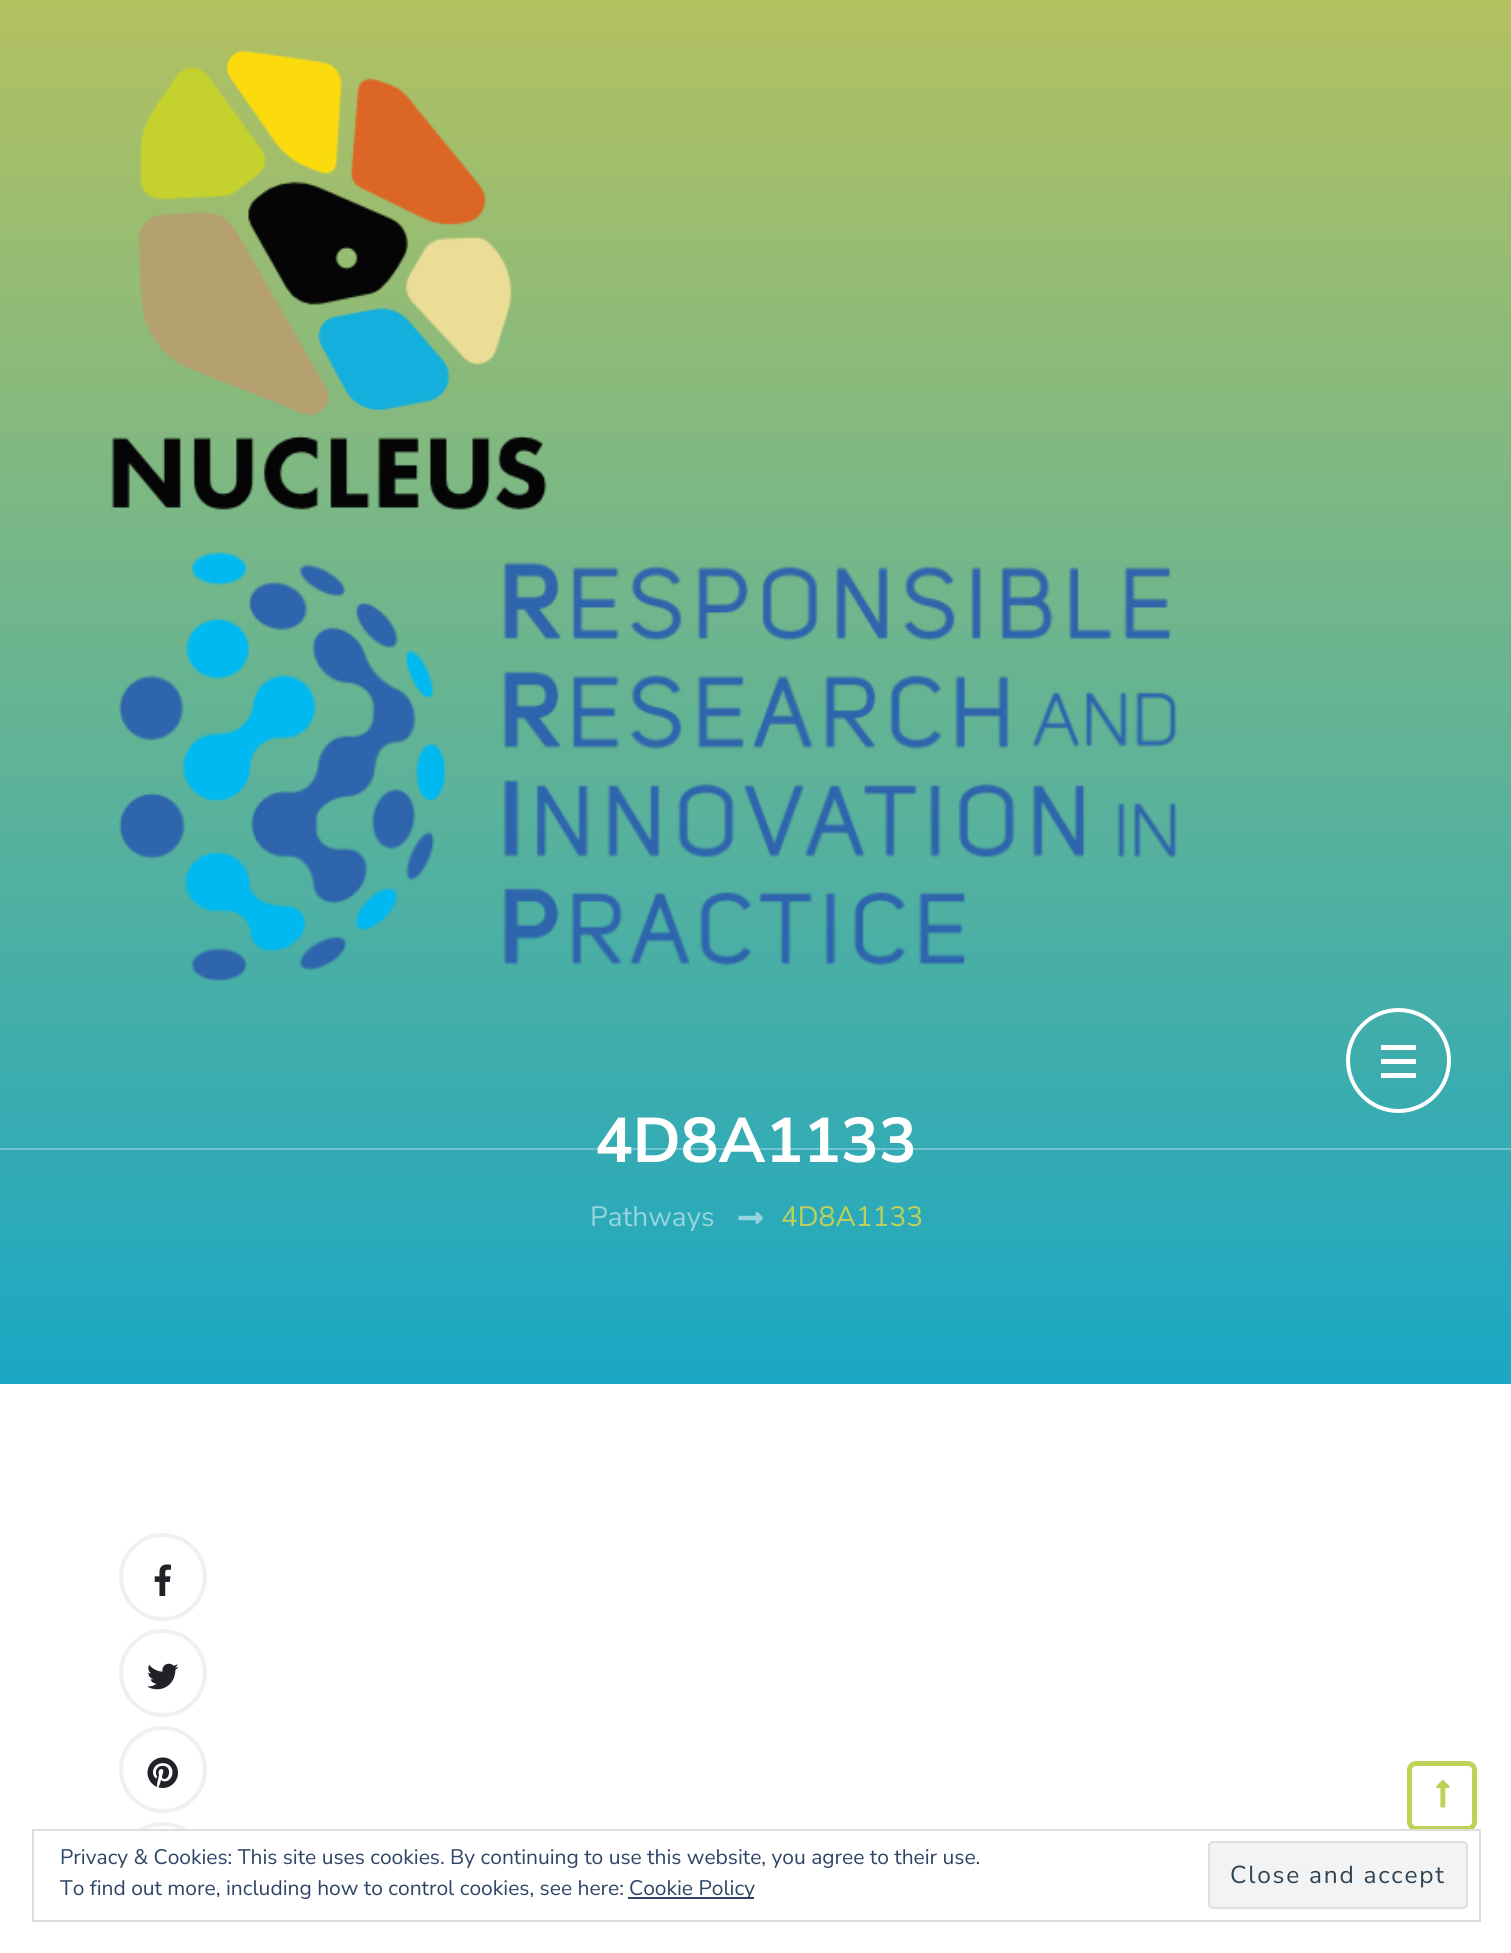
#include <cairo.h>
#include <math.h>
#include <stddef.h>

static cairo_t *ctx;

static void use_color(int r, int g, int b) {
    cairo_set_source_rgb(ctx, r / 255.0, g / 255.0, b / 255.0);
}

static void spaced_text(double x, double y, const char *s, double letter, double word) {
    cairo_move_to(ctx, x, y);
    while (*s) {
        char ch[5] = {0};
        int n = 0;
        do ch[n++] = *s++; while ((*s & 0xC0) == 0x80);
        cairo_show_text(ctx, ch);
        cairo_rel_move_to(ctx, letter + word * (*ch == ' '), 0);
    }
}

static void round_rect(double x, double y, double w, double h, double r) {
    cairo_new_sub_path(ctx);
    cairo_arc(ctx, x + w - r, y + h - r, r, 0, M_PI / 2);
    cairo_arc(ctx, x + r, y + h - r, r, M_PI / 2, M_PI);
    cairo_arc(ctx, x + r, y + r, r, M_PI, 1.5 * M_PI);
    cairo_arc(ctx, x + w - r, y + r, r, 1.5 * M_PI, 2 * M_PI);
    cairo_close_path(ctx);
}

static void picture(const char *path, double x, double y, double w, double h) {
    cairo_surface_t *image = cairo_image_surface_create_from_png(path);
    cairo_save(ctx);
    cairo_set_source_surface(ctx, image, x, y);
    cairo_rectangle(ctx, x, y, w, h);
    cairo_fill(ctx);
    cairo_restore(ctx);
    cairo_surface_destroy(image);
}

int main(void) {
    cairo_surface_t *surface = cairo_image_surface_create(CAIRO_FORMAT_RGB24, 1511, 1953);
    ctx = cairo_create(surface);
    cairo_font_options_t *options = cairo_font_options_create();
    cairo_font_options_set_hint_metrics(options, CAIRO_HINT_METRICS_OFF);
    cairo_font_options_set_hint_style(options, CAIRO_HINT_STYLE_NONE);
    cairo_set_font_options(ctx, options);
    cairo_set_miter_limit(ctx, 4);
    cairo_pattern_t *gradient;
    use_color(255, 255, 255);
    cairo_paint(ctx);
    gradient = cairo_pattern_create_linear(756, 0, 756, 1384);
    cairo_pattern_add_color_stop_rgba(gradient, 0, 0.702, 0.757, 0.376, 1);
    cairo_pattern_add_color_stop_rgba(gradient, 1, 0.102, 0.655, 0.773, 1);
    cairo_set_source(ctx, gradient);
    cairo_pattern_destroy(gradient);
    cairo_rectangle(ctx, 0, 0, 1511, 1384);
    cairo_fill(ctx);
    cairo_select_font_face(ctx, "Nunito Sans", CAIRO_FONT_SLANT_NORMAL, CAIRO_FONT_WEIGHT_BOLD);
    cairo_set_font_size(ctx, 63);
    use_color(255, 255, 255);
    cairo_move_to(ctx, 595, 1162);
    cairo_show_text(ctx, "4D8A1133");
    cairo_set_source_rgba(ctx, 1, 1, 1, 0.3);
    cairo_rectangle(ctx, 0, 1148, 1511, 2);
    cairo_fill(ctx);
    picture("img1.png", 111, 50, 436, 460);
    picture("img2.png", 118, 551, 1059, 430);
    cairo_arc(ctx, 1398.5, 1060.5, 50.5, 0, 2 * M_PI);
    use_color(255, 255, 255);
    cairo_set_line_width(ctx, 4);
    cairo_stroke(ctx);
    cairo_rectangle(ctx, 1381, 1045, 35, 5);
    cairo_fill(ctx);
    cairo_rectangle(ctx, 1381, 1059, 35, 5);
    cairo_fill(ctx);
    cairo_rectangle(ctx, 1381, 1073, 35, 5);
    cairo_fill(ctx);
    cairo_select_font_face(ctx, "Nunito Sans", CAIRO_FONT_SLANT_NORMAL, CAIRO_FONT_WEIGHT_NORMAL);
    cairo_set_font_size(ctx, 28);
    use_color(150, 213, 220);
    cairo_move_to(ctx, 590, 1226);
    cairo_show_text(ctx, "Pathways");
    picture("img3.png", 738, 1212, 25, 12);
    use_color(192, 209, 88);
    cairo_move_to(ctx, 781, 1226);
    cairo_show_text(ctx, "4D8A1133");
    cairo_new_path(ctx);
    cairo_arc(ctx, 163, 1577, 42, 0, 2 * M_PI);
    use_color(240, 240, 240);
    cairo_stroke(ctx);
    picture("img4.png", 154, 1564, 17, 32);
    cairo_arc(ctx, 163, 1673, 42, 0, 2 * M_PI);
    cairo_stroke(ctx);
    picture("img5.png", 147, 1663, 32, 27);
    round_rect(121, 1728, 84, 83, 41.5);
    cairo_stroke(ctx);
    picture("img6.png", 147, 1757, 31, 31);
    round_rect(121, 1824, 84, 83, 41.5);
    cairo_stroke(ctx);
    round_rect(1409.5, 1763.5, 65, 65, 6.5);
    use_color(192, 209, 88);
    cairo_set_line_width(ctx, 5);
    cairo_stroke(ctx);
    picture("img7.png", 1436, 1780, 14, 28);
    use_color(255, 255, 255);
    cairo_rectangle(ctx, 119, 1831, 88, 78);
    cairo_fill(ctx);
    cairo_rectangle(ctx, 33, 1830, 1447, 91);
    use_color(222, 222, 222);
    cairo_set_line_width(ctx, 2);
    cairo_stroke(ctx);
    cairo_set_font_size(ctx, 21);
    use_color(46, 68, 103);
    cairo_move_to(ctx, 60, 1864);
    cairo_show_text(ctx, "Privacy & Cookies: This site uses cookies. By continuing to use this website, you agree to their use.");
    cairo_move_to(ctx, 60, 1895);
    cairo_show_text(ctx, "To find out more, including how to control cookies, see here:");
    cairo_rectangle(ctx, 628, 1897, 126, 2);
    cairo_fill(ctx);
    cairo_move_to(ctx, 629, 1895);
    cairo_show_text(ctx, "Cookie Policy");
    use_color(243, 243, 243);
    round_rect(1209, 1842, 258, 66, 4);
    cairo_fill_preserve(ctx);
    use_color(222, 222, 222);
    cairo_stroke(ctx);
    cairo_set_font_size(ctx, 24.5);
    use_color(46, 68, 83);
    spaced_text(1230, 1883, "Close and accept", 1.75, 0);
    cairo_surface_write_to_png(surface, "result.png");
    cairo_font_options_destroy(options);
    cairo_destroy(ctx);
    cairo_surface_destroy(surface);
    return 0;
}
